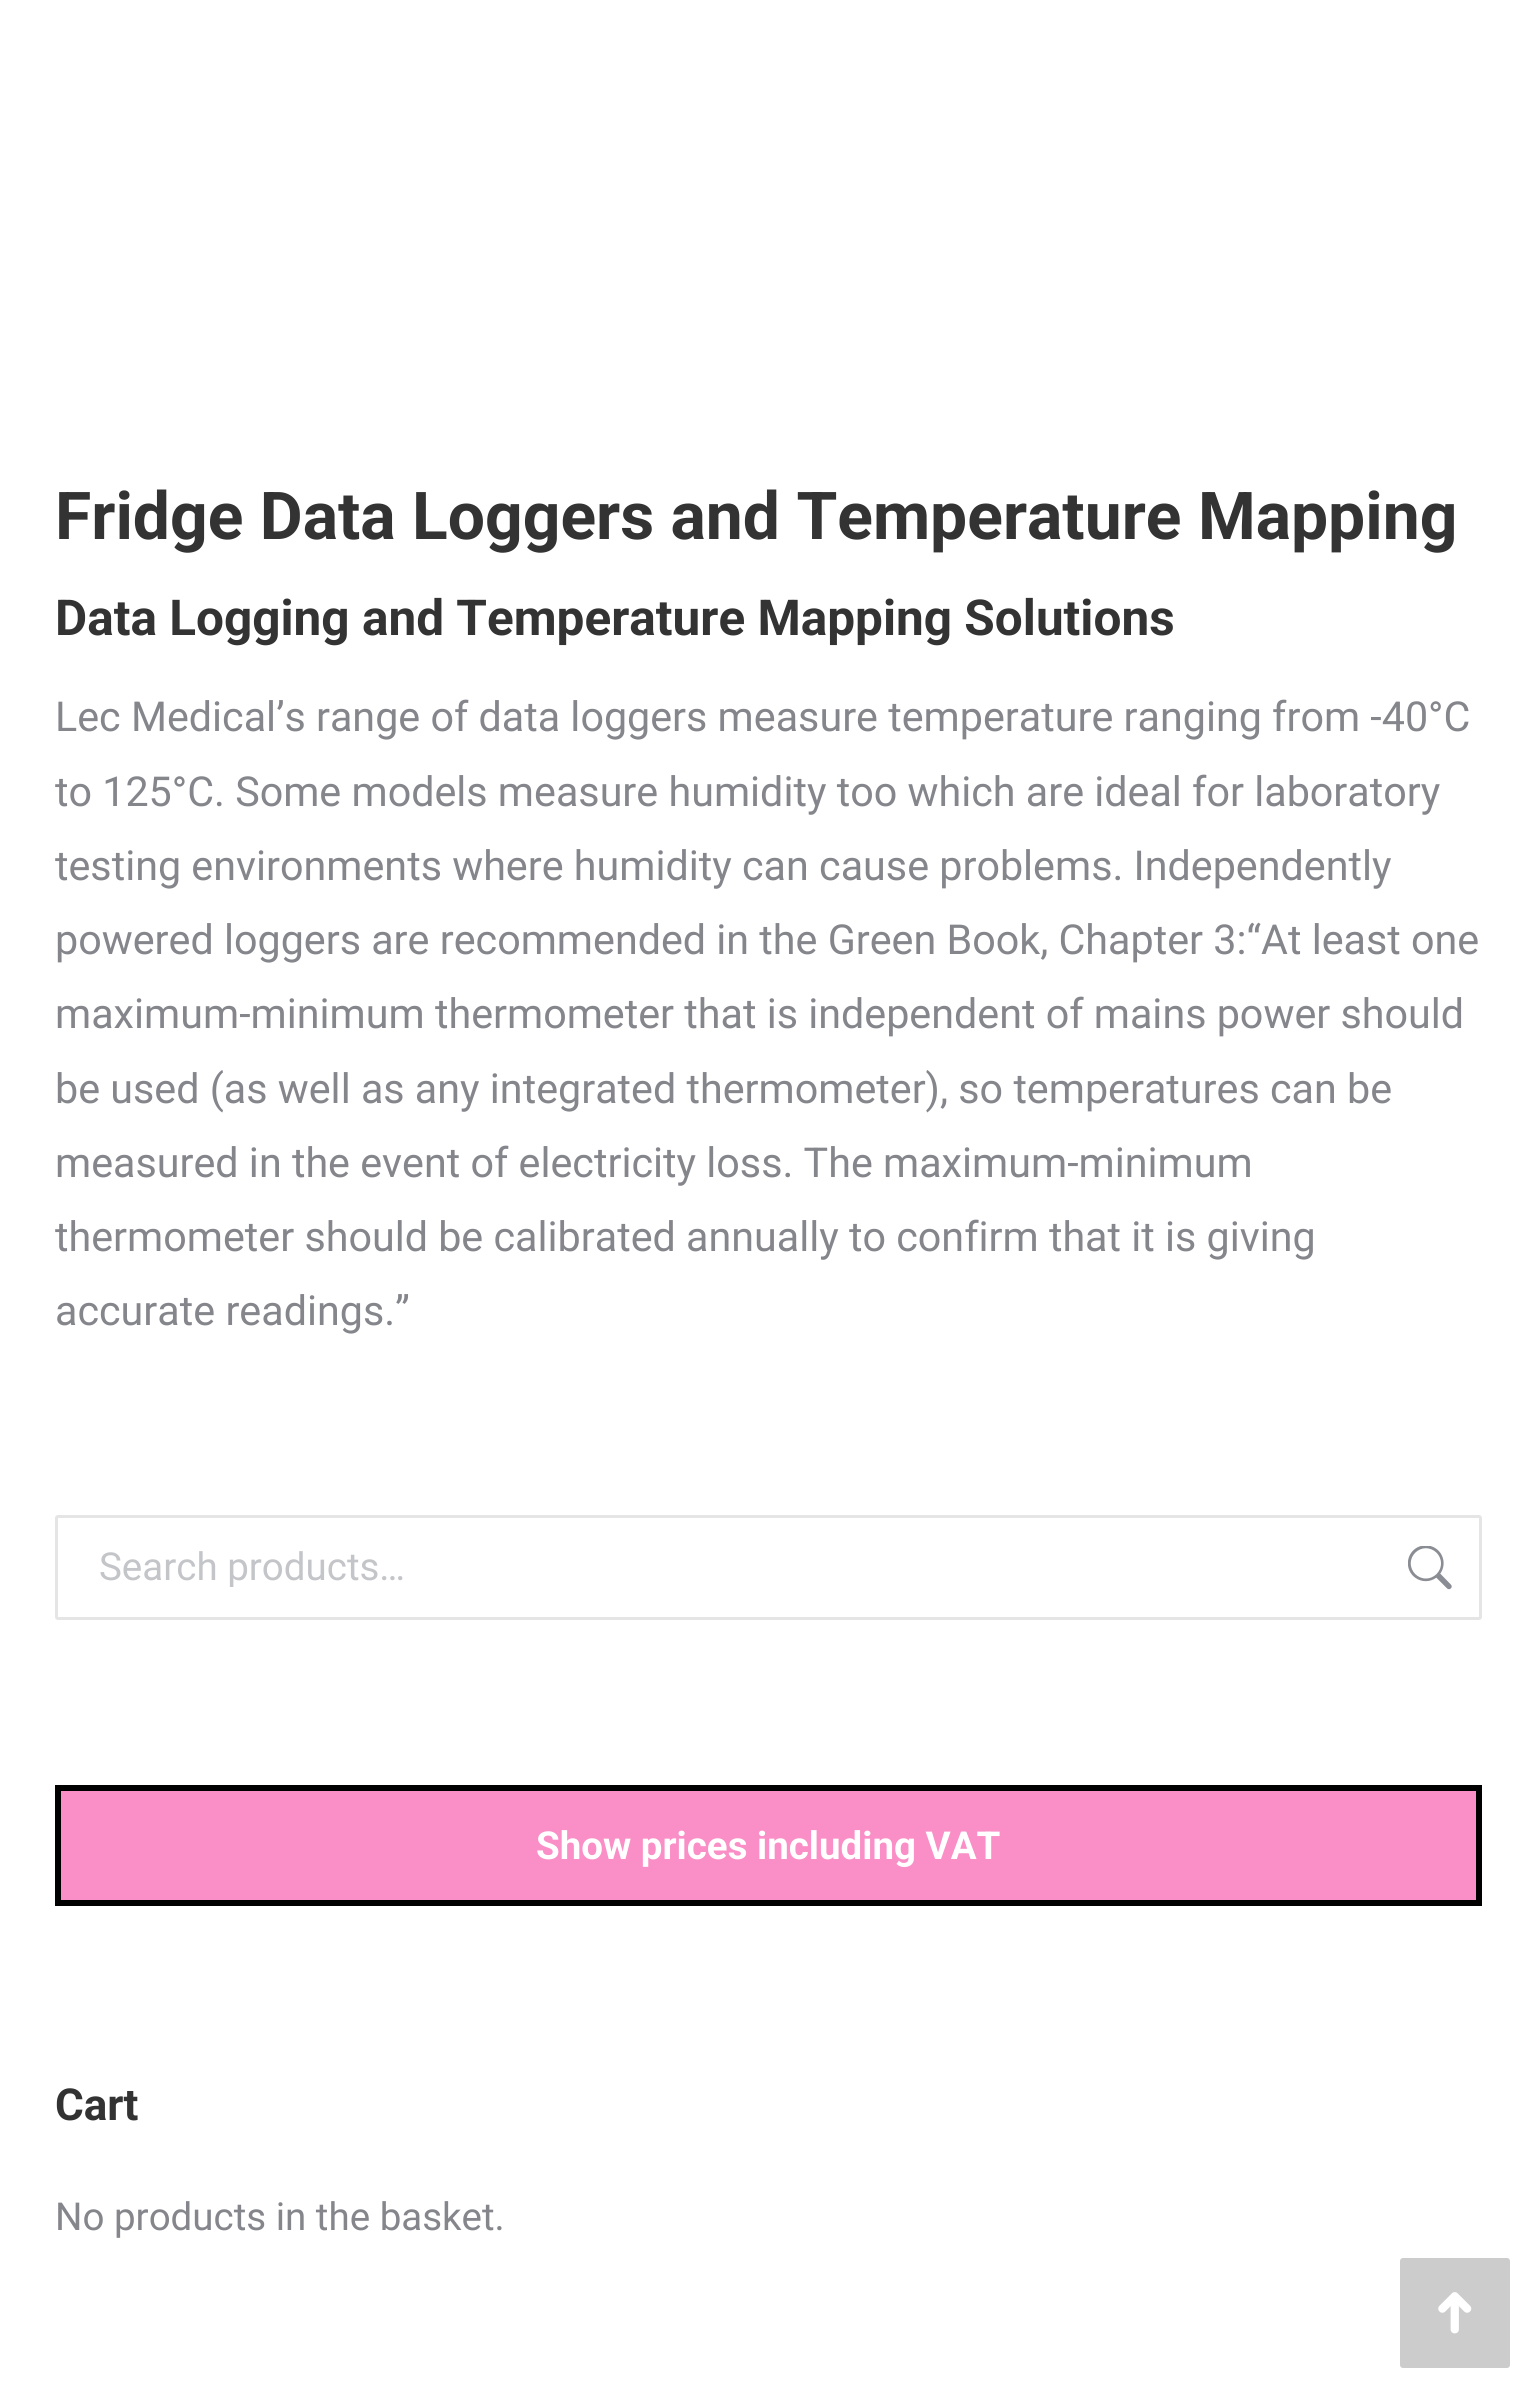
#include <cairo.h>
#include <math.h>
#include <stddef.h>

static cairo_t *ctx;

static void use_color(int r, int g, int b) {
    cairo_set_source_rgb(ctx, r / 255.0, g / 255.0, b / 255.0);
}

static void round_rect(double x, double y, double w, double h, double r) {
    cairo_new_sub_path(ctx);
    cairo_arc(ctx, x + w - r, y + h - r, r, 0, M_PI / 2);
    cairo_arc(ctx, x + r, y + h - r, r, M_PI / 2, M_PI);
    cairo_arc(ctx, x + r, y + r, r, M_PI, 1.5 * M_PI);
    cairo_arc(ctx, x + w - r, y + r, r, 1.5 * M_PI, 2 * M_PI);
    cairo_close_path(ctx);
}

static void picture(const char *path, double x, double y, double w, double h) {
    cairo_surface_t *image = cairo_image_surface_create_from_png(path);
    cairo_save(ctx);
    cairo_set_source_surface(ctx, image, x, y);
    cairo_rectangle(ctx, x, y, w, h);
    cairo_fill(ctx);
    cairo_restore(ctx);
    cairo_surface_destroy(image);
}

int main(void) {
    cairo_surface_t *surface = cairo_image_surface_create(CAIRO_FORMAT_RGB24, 1535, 2395);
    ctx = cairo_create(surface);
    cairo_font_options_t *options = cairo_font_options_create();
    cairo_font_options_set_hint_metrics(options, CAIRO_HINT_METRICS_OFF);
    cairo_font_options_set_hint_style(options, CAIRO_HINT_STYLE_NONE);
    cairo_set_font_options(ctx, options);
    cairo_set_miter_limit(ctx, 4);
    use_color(255, 255, 255);
    cairo_paint(ctx);
    cairo_select_font_face(ctx, "Roboto", CAIRO_FONT_SLANT_NORMAL, CAIRO_FONT_WEIGHT_BOLD);
    cairo_set_font_size(ctx, 66);
    use_color(51, 51, 51);
    cairo_move_to(ctx, 55, 539);
    cairo_show_text(ctx, "Fridge Data Loggers and Temperature Mapping");
    cairo_set_font_size(ctx, 49.5);
    cairo_move_to(ctx, 55, 635);
    cairo_show_text(ctx, "Data Logging and Temperature Mapping Solutions");
    cairo_select_font_face(ctx, "Roboto", CAIRO_FONT_SLANT_NORMAL, CAIRO_FONT_WEIGHT_NORMAL);
    cairo_set_font_size(ctx, 41.25);
    use_color(133, 134, 140);
    cairo_move_to(ctx, 55, 731);
    cairo_show_text(ctx, "Lec Medical’s range of data loggers measure temperature ranging from -40°C");
    cairo_move_to(ctx, 55, 806);
    cairo_show_text(ctx, "to 125°C. Some models measure humidity too which are ideal for laboratory");
    cairo_move_to(ctx, 55, 880);
    cairo_show_text(ctx, "testing environments where humidity can cause problems. Independently");
    cairo_move_to(ctx, 55, 954);
    cairo_show_text(ctx, "powered loggers are recommended in the Green Book, Chapter 3:“At least one");
    cairo_move_to(ctx, 55, 1028);
    cairo_show_text(ctx, "maximum-minimum thermometer that is independent of mains power should");
    cairo_move_to(ctx, 55, 1103);
    cairo_show_text(ctx, "be used (as well as any integrated thermometer), so temperatures can be");
    cairo_move_to(ctx, 55, 1177);
    cairo_show_text(ctx, "measured in the event of electricity loss. The maximum-minimum");
    cairo_move_to(ctx, 55, 1251);
    cairo_show_text(ctx, "thermometer should be calibrated annually to confirm that it is giving");
    cairo_move_to(ctx, 55, 1325);
    cairo_show_text(ctx, "accurate readings.”");
    round_rect(56.5, 1516.5, 1424, 102, 1.5);
    use_color(229, 229, 229);
    cairo_set_line_width(ctx, 3);
    cairo_stroke(ctx);
    cairo_save(ctx);
    cairo_rectangle(ctx, 99, 1543, 1328, 44);
    cairo_clip(ctx);
    cairo_set_font_size(ctx, 38.5);
    use_color(196, 197, 201);
    cairo_move_to(ctx, 99, 1580);
    cairo_show_text(ctx, "Search products…");
    cairo_restore(ctx);
    picture("img1.png", 1408, 1546, 44, 44);
    use_color(250, 142, 198);
    cairo_rectangle(ctx, 58, 1788, 1421, 115);
    cairo_fill_preserve(ctx);
    use_color(0, 0, 0);
    cairo_set_line_width(ctx, 6);
    cairo_stroke(ctx);
    cairo_select_font_face(ctx, "Roboto", CAIRO_FONT_SLANT_NORMAL, CAIRO_FONT_WEIGHT_BOLD);
    cairo_set_font_size(ctx, 38.5);
    use_color(255, 255, 255);
    cairo_move_to(ctx, 536, 1859);
    cairo_show_text(ctx, "Show prices including VAT");
    cairo_set_font_size(ctx, 44);
    use_color(51, 51, 51);
    cairo_move_to(ctx, 55, 2120);
    cairo_show_text(ctx, "Cart");
    cairo_select_font_face(ctx, "Roboto", CAIRO_FONT_SLANT_NORMAL, CAIRO_FONT_WEIGHT_NORMAL);
    cairo_set_font_size(ctx, 38.5);
    use_color(133, 134, 140);
    cairo_move_to(ctx, 55, 2230);
    cairo_show_text(ctx, "No products in the basket.");
    use_color(204, 204, 204);
    round_rect(1400, 2258, 110, 110, 3);
    cairo_fill(ctx);
    picture("img2.png", 1438, 2292, 34, 42);
    cairo_surface_write_to_png(surface, "result.png");
    cairo_font_options_destroy(options);
    cairo_destroy(ctx);
    cairo_surface_destroy(surface);
    return 0;
}
